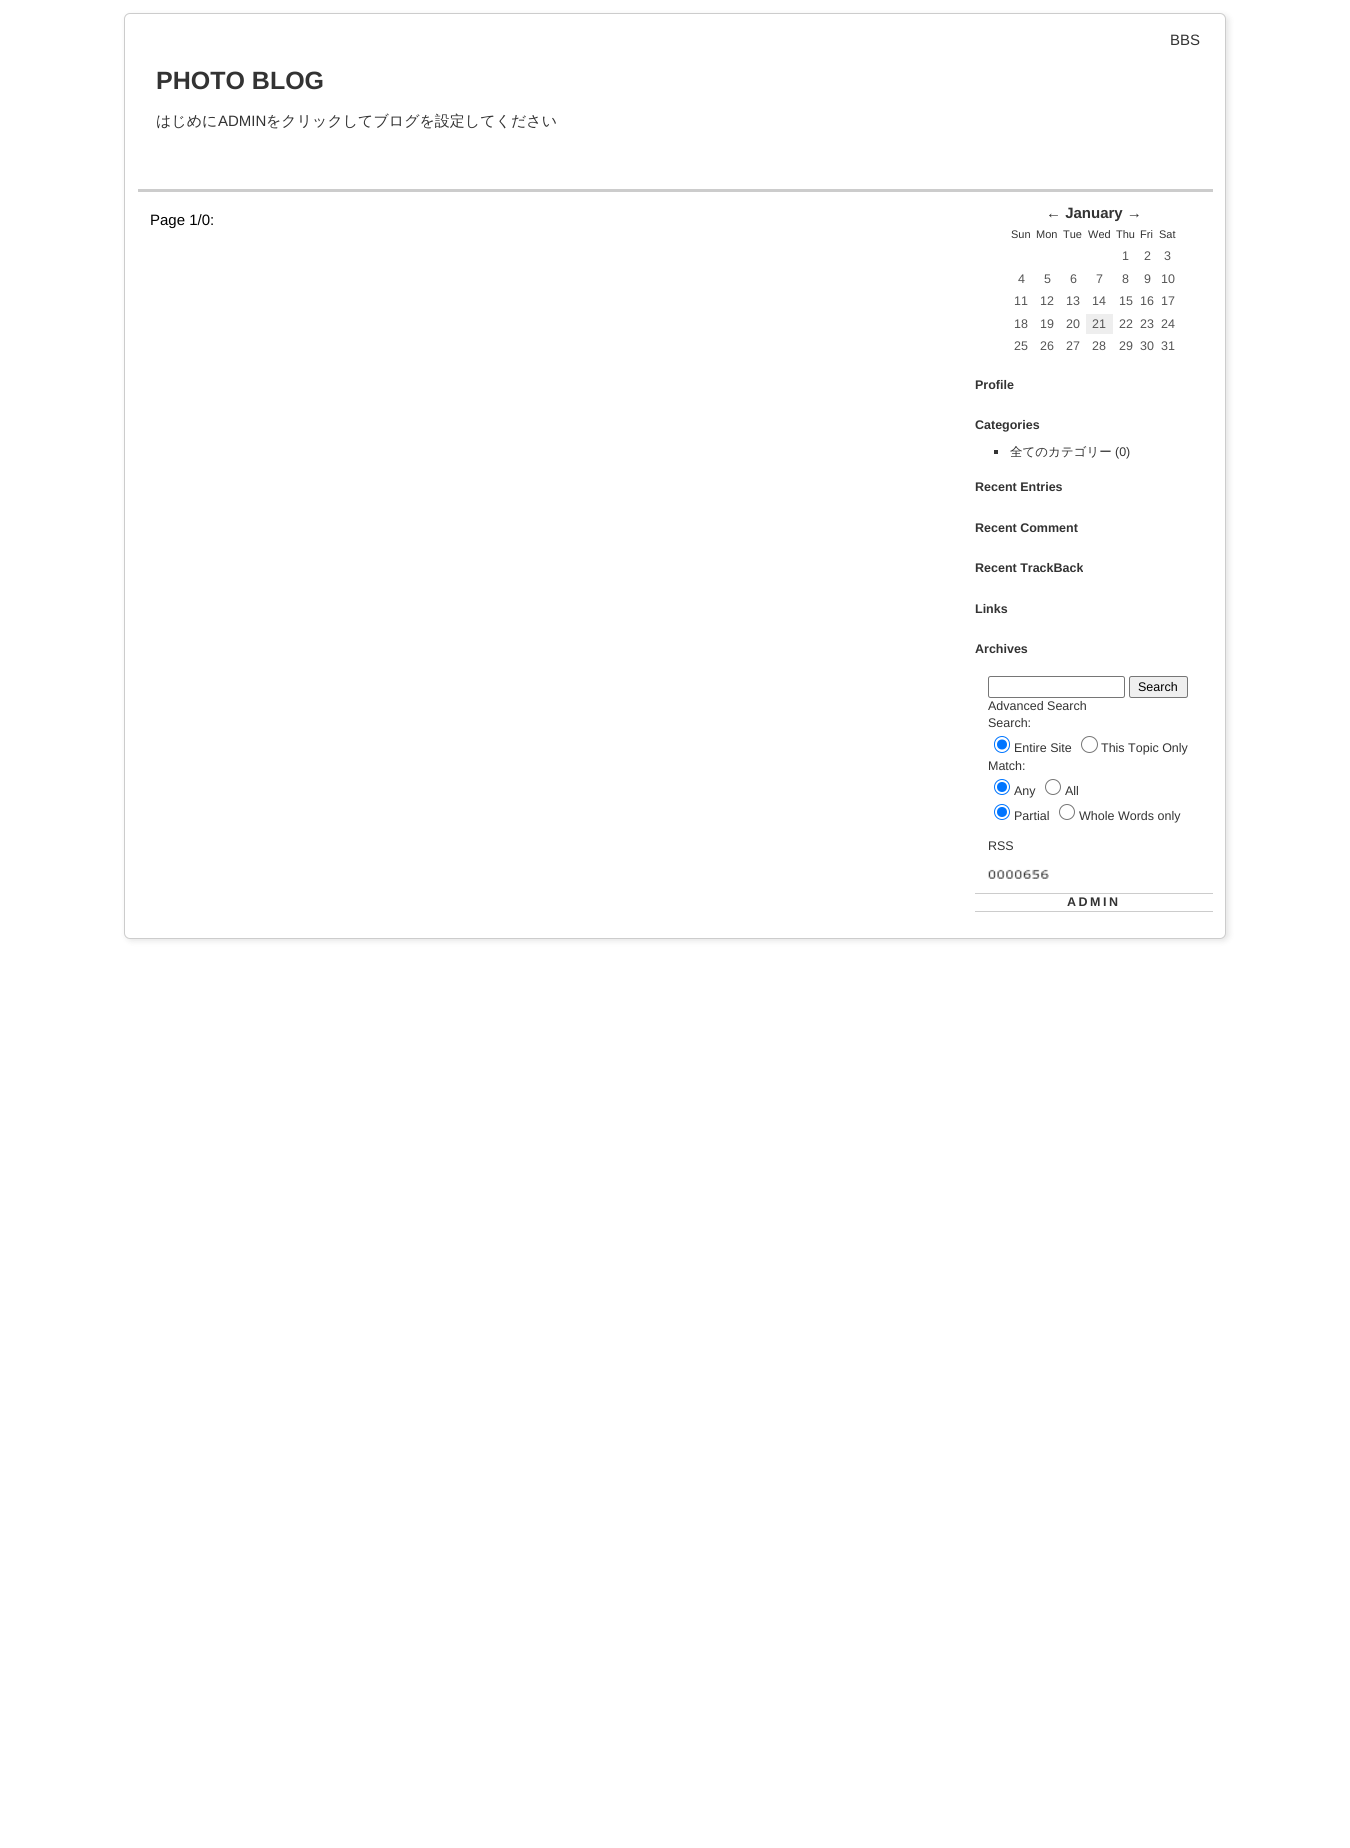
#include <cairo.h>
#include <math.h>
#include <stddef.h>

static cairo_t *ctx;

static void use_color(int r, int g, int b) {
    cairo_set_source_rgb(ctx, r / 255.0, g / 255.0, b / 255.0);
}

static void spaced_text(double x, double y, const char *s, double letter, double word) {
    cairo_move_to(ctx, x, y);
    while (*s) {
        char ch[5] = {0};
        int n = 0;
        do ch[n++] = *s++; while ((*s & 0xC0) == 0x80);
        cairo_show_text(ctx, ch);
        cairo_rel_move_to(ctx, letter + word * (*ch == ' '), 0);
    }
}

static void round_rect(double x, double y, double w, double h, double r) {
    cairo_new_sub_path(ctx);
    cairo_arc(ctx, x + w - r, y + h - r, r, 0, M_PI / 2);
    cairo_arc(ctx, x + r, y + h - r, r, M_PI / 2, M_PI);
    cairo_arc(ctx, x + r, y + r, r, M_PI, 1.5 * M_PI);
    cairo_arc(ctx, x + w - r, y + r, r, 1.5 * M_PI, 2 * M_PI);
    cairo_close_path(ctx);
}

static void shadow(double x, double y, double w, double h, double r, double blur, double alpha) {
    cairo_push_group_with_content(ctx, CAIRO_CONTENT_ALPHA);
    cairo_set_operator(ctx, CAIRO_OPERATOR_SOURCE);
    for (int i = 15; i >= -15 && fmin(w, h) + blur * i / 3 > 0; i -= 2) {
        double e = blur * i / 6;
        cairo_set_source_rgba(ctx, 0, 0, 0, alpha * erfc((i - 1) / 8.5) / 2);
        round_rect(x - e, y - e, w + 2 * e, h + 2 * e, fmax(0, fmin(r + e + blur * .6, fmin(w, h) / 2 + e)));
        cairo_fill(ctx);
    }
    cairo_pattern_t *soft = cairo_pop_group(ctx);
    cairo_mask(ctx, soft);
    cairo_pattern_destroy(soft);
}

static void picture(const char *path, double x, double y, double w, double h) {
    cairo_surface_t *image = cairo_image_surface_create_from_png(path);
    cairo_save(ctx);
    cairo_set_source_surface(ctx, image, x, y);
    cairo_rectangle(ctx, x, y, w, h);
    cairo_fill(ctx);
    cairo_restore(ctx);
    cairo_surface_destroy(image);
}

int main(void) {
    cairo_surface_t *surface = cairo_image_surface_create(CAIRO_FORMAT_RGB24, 1350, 1848);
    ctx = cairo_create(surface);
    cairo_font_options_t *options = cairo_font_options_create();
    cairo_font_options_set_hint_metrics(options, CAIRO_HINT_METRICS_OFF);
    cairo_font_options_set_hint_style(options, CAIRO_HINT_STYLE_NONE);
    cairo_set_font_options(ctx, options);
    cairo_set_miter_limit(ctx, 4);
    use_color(255, 255, 255);
    cairo_paint(ctx);
    use_color(0, 0, 0);
    shadow(126, 15, 1103, 926, 6, 3, 0.1);
    use_color(255, 255, 255);
    round_rect(124.5, 13.5, 1101, 925, 5.5);
    cairo_fill_preserve(ctx);
    use_color(204, 204, 204);
    cairo_set_line_width(ctx, 1);
    cairo_stroke(ctx);
    cairo_rectangle(ctx, 138, 189, 1075, 3);
    cairo_fill(ctx);
    cairo_select_font_face(ctx, "Liberation Sans", CAIRO_FONT_SLANT_NORMAL, CAIRO_FONT_WEIGHT_NORMAL);
    cairo_set_font_size(ctx, 15);
    use_color(51, 51, 51);
    cairo_move_to(ctx, 1170, 45);
    cairo_show_text(ctx, "BBS");
    cairo_select_font_face(ctx, "Liberation Sans", CAIRO_FONT_SLANT_NORMAL, CAIRO_FONT_WEIGHT_BOLD);
    cairo_set_font_size(ctx, 25);
    cairo_move_to(ctx, 156, 89);
    cairo_show_text(ctx, "PHOTO BLOG");
    cairo_select_font_face(ctx, "WenQuanYi Zen Hei Medium", CAIRO_FONT_SLANT_NORMAL, CAIRO_FONT_WEIGHT_NORMAL);
    cairo_set_font_size(ctx, 15);
    cairo_move_to(ctx, 156, 126);
    cairo_show_text(ctx, "はじめに");
    cairo_select_font_face(ctx, "Liberation Sans", CAIRO_FONT_SLANT_NORMAL, CAIRO_FONT_WEIGHT_NORMAL);
    cairo_move_to(ctx, 218, 126);
    cairo_show_text(ctx, "ADMIN");
    cairo_select_font_face(ctx, "WenQuanYi Zen Hei Medium", CAIRO_FONT_SLANT_NORMAL, CAIRO_FONT_WEIGHT_NORMAL);
    cairo_move_to(ctx, 266, 126);
    cairo_show_text(ctx, "をクリックしてブログを設定してください");
    cairo_select_font_face(ctx, "Liberation Sans", CAIRO_FONT_SLANT_NORMAL, CAIRO_FONT_WEIGHT_NORMAL);
    use_color(0, 0, 0);
    cairo_move_to(ctx, 150, 225);
    cairo_show_text(ctx, "Page 1/0:");
    cairo_select_font_face(ctx, "Liberation Sans", CAIRO_FONT_SLANT_NORMAL, CAIRO_FONT_WEIGHT_BOLD);
    use_color(51, 51, 51);
    cairo_move_to(ctx, 1046, 218);
    cairo_show_text(ctx, "← January →");
    cairo_select_font_face(ctx, "Liberation Sans", CAIRO_FONT_SLANT_NORMAL, CAIRO_FONT_WEIGHT_NORMAL);
    cairo_set_font_size(ctx, 11);
    cairo_move_to(ctx, 1011, 238);
    cairo_show_text(ctx, "Sun");
    cairo_move_to(ctx, 1036, 238);
    cairo_show_text(ctx, "Mon");
    cairo_move_to(ctx, 1063, 238);
    cairo_show_text(ctx, "Tue");
    cairo_move_to(ctx, 1088, 238);
    cairo_show_text(ctx, "Wed");
    cairo_move_to(ctx, 1116, 238);
    cairo_show_text(ctx, "Thu");
    cairo_move_to(ctx, 1140, 238);
    cairo_show_text(ctx, "Fri");
    cairo_move_to(ctx, 1159, 238);
    cairo_show_text(ctx, "Sat");
    cairo_set_font_size(ctx, 12.5);
    use_color(85, 85, 85);
    cairo_move_to(ctx, 1122, 260);
    cairo_show_text(ctx, "1");
    cairo_move_to(ctx, 1144, 260);
    cairo_show_text(ctx, "2");
    cairo_move_to(ctx, 1164, 260);
    cairo_show_text(ctx, "3");
    cairo_move_to(ctx, 1018, 283);
    cairo_show_text(ctx, "4");
    cairo_move_to(ctx, 1044, 283);
    cairo_show_text(ctx, "5");
    cairo_move_to(ctx, 1070, 283);
    cairo_show_text(ctx, "6");
    cairo_move_to(ctx, 1096, 283);
    cairo_show_text(ctx, "7");
    cairo_move_to(ctx, 1122, 283);
    cairo_show_text(ctx, "8");
    cairo_move_to(ctx, 1144, 283);
    cairo_show_text(ctx, "9");
    cairo_move_to(ctx, 1161, 283);
    cairo_show_text(ctx, "10");
    cairo_move_to(ctx, 1014, 305);
    cairo_show_text(ctx, "11");
    cairo_move_to(ctx, 1040, 305);
    cairo_show_text(ctx, "12");
    cairo_move_to(ctx, 1066, 305);
    cairo_show_text(ctx, "13");
    cairo_move_to(ctx, 1092, 305);
    cairo_show_text(ctx, "14");
    cairo_move_to(ctx, 1119, 305);
    cairo_show_text(ctx, "15");
    cairo_move_to(ctx, 1140, 305);
    cairo_show_text(ctx, "16");
    cairo_move_to(ctx, 1161, 305);
    cairo_show_text(ctx, "17");
    cairo_move_to(ctx, 1014, 328);
    cairo_show_text(ctx, "18");
    cairo_move_to(ctx, 1040, 328);
    cairo_show_text(ctx, "19");
    cairo_move_to(ctx, 1066, 328);
    cairo_show_text(ctx, "20");
    use_color(238, 238, 238);
    cairo_rectangle(ctx, 1086, 314, 27, 20);
    cairo_fill(ctx);
    use_color(85, 85, 85);
    cairo_move_to(ctx, 1092, 328);
    cairo_show_text(ctx, "21");
    cairo_move_to(ctx, 1119, 328);
    cairo_show_text(ctx, "22");
    cairo_move_to(ctx, 1140, 328);
    cairo_show_text(ctx, "23");
    cairo_move_to(ctx, 1161, 328);
    cairo_show_text(ctx, "24");
    cairo_move_to(ctx, 1014, 350);
    cairo_show_text(ctx, "25");
    cairo_move_to(ctx, 1040, 350);
    cairo_show_text(ctx, "26");
    cairo_move_to(ctx, 1066, 350);
    cairo_show_text(ctx, "27");
    cairo_move_to(ctx, 1092, 350);
    cairo_show_text(ctx, "28");
    cairo_move_to(ctx, 1119, 350);
    cairo_show_text(ctx, "29");
    cairo_move_to(ctx, 1140, 350);
    cairo_show_text(ctx, "30");
    cairo_move_to(ctx, 1161, 350);
    cairo_show_text(ctx, "31");
    cairo_select_font_face(ctx, "Liberation Sans", CAIRO_FONT_SLANT_NORMAL, CAIRO_FONT_WEIGHT_BOLD);
    use_color(51, 51, 51);
    cairo_move_to(ctx, 975, 389);
    cairo_show_text(ctx, "Profile");
    cairo_move_to(ctx, 975, 429);
    cairo_show_text(ctx, "Categories");
    cairo_rectangle(ctx, 994, 450, 4, 4);
    cairo_fill(ctx);
    cairo_select_font_face(ctx, "WenQuanYi Zen Hei Medium", CAIRO_FONT_SLANT_NORMAL, CAIRO_FONT_WEIGHT_NORMAL);
    cairo_move_to(ctx, 1010, 456);
    cairo_show_text(ctx, "全てのカテゴリー");
    cairo_select_font_face(ctx, "Liberation Sans", CAIRO_FONT_SLANT_NORMAL, CAIRO_FONT_WEIGHT_NORMAL);
    cairo_move_to(ctx, 1115, 456);
    cairo_show_text(ctx, "(0)");
    cairo_select_font_face(ctx, "Liberation Sans", CAIRO_FONT_SLANT_NORMAL, CAIRO_FONT_WEIGHT_BOLD);
    cairo_move_to(ctx, 975, 491);
    cairo_show_text(ctx, "Recent Entries");
    cairo_move_to(ctx, 975, 532);
    cairo_show_text(ctx, "Recent Comment");
    cairo_move_to(ctx, 975, 572);
    cairo_show_text(ctx, "Recent TrackBack");
    cairo_move_to(ctx, 975, 613);
    cairo_show_text(ctx, "Links");
    cairo_move_to(ctx, 975, 653);
    cairo_show_text(ctx, "Archives");
    round_rect(988.5, 676.5, 136, 21, 2);
    use_color(118, 118, 118);
    cairo_stroke(ctx);
    use_color(239, 239, 239);
    round_rect(1129.5, 676.5, 58, 21, 2);
    cairo_fill_preserve(ctx);
    use_color(118, 118, 118);
    cairo_stroke(ctx);
    cairo_select_font_face(ctx, "Liberation Sans", CAIRO_FONT_SLANT_NORMAL, CAIRO_FONT_WEIGHT_NORMAL);
    use_color(0, 0, 0);
    cairo_move_to(ctx, 1138, 691);
    cairo_show_text(ctx, "Search");
    use_color(51, 51, 51);
    cairo_move_to(ctx, 988, 710);
    cairo_show_text(ctx, "Advanced Search");
    cairo_move_to(ctx, 988, 727);
    cairo_show_text(ctx, "Search:");
    round_rect(994.5, 736.5, 15, 16, 7.5);
    use_color(0, 117, 255);
    cairo_stroke(ctx);
    cairo_arc(ctx, 1002, 744.5, 5, 0, 2 * M_PI);
    cairo_fill(ctx);
    use_color(51, 51, 51);
    cairo_move_to(ctx, 1014, 752);
    cairo_show_text(ctx, "Entire Site");
    cairo_new_path(ctx);
    cairo_arc(ctx, 1089.5, 744.5, 8, 0, 2 * M_PI);
    use_color(118, 118, 118);
    cairo_stroke(ctx);
    use_color(51, 51, 51);
    cairo_move_to(ctx, 1101, 752);
    cairo_show_text(ctx, "This Topic Only");
    cairo_move_to(ctx, 988, 770);
    cairo_show_text(ctx, "Match:");
    cairo_new_path(ctx);
    cairo_arc(ctx, 1002, 787, 7.5, 0, 2 * M_PI);
    use_color(0, 117, 255);
    cairo_stroke(ctx);
    cairo_arc(ctx, 1002, 787, 5, 0, 2 * M_PI);
    cairo_fill(ctx);
    use_color(51, 51, 51);
    cairo_move_to(ctx, 1014, 795);
    cairo_show_text(ctx, "Any");
    cairo_new_path(ctx);
    cairo_arc(ctx, 1053, 787, 7.5, 0, 2 * M_PI);
    use_color(118, 118, 118);
    cairo_stroke(ctx);
    use_color(51, 51, 51);
    cairo_move_to(ctx, 1065, 795);
    cairo_show_text(ctx, "All");
    cairo_new_path(ctx);
    cairo_arc(ctx, 1002, 812, 7.5, 0, 2 * M_PI);
    use_color(0, 117, 255);
    cairo_stroke(ctx);
    cairo_arc(ctx, 1002, 812, 5, 0, 2 * M_PI);
    cairo_fill(ctx);
    use_color(51, 51, 51);
    cairo_move_to(ctx, 1014, 820);
    cairo_show_text(ctx, "Partial");
    cairo_new_path(ctx);
    cairo_arc(ctx, 1067, 812, 7.5, 0, 2 * M_PI);
    use_color(118, 118, 118);
    cairo_stroke(ctx);
    use_color(51, 51, 51);
    cairo_move_to(ctx, 1079, 820);
    cairo_show_text(ctx, "Whole Words only");
    cairo_move_to(ctx, 988, 850);
    cairo_show_text(ctx, "RSS");
    picture("img1.png", 988, 869, 9, 10);
    picture("img2.png", 996, 869, 9, 10);
    picture("img3.png", 1006, 869, 8, 10);
    picture("img4.png", 1013, 869, 10, 10);
    picture("img5.png", 1022, 869, 10, 10);
    picture("img6.png", 1031, 869, 9, 10);
    picture("img7.png", 1041, 869, 8, 10);
    use_color(204, 204, 204);
    cairo_rectangle(ctx, 975, 893, 238, 1);
    cairo_fill(ctx);
    cairo_rectangle(ctx, 975, 911, 238, 1);
    cairo_fill(ctx);
    cairo_select_font_face(ctx, "Liberation Sans", CAIRO_FONT_SLANT_NORMAL, CAIRO_FONT_WEIGHT_BOLD);
    use_color(51, 51, 51);
    spaced_text(1067, 906, "ADMIN", 2.5, 0);
    cairo_surface_write_to_png(surface, "result.png");
    cairo_font_options_destroy(options);
    cairo_destroy(ctx);
    cairo_surface_destroy(surface);
    return 0;
}
